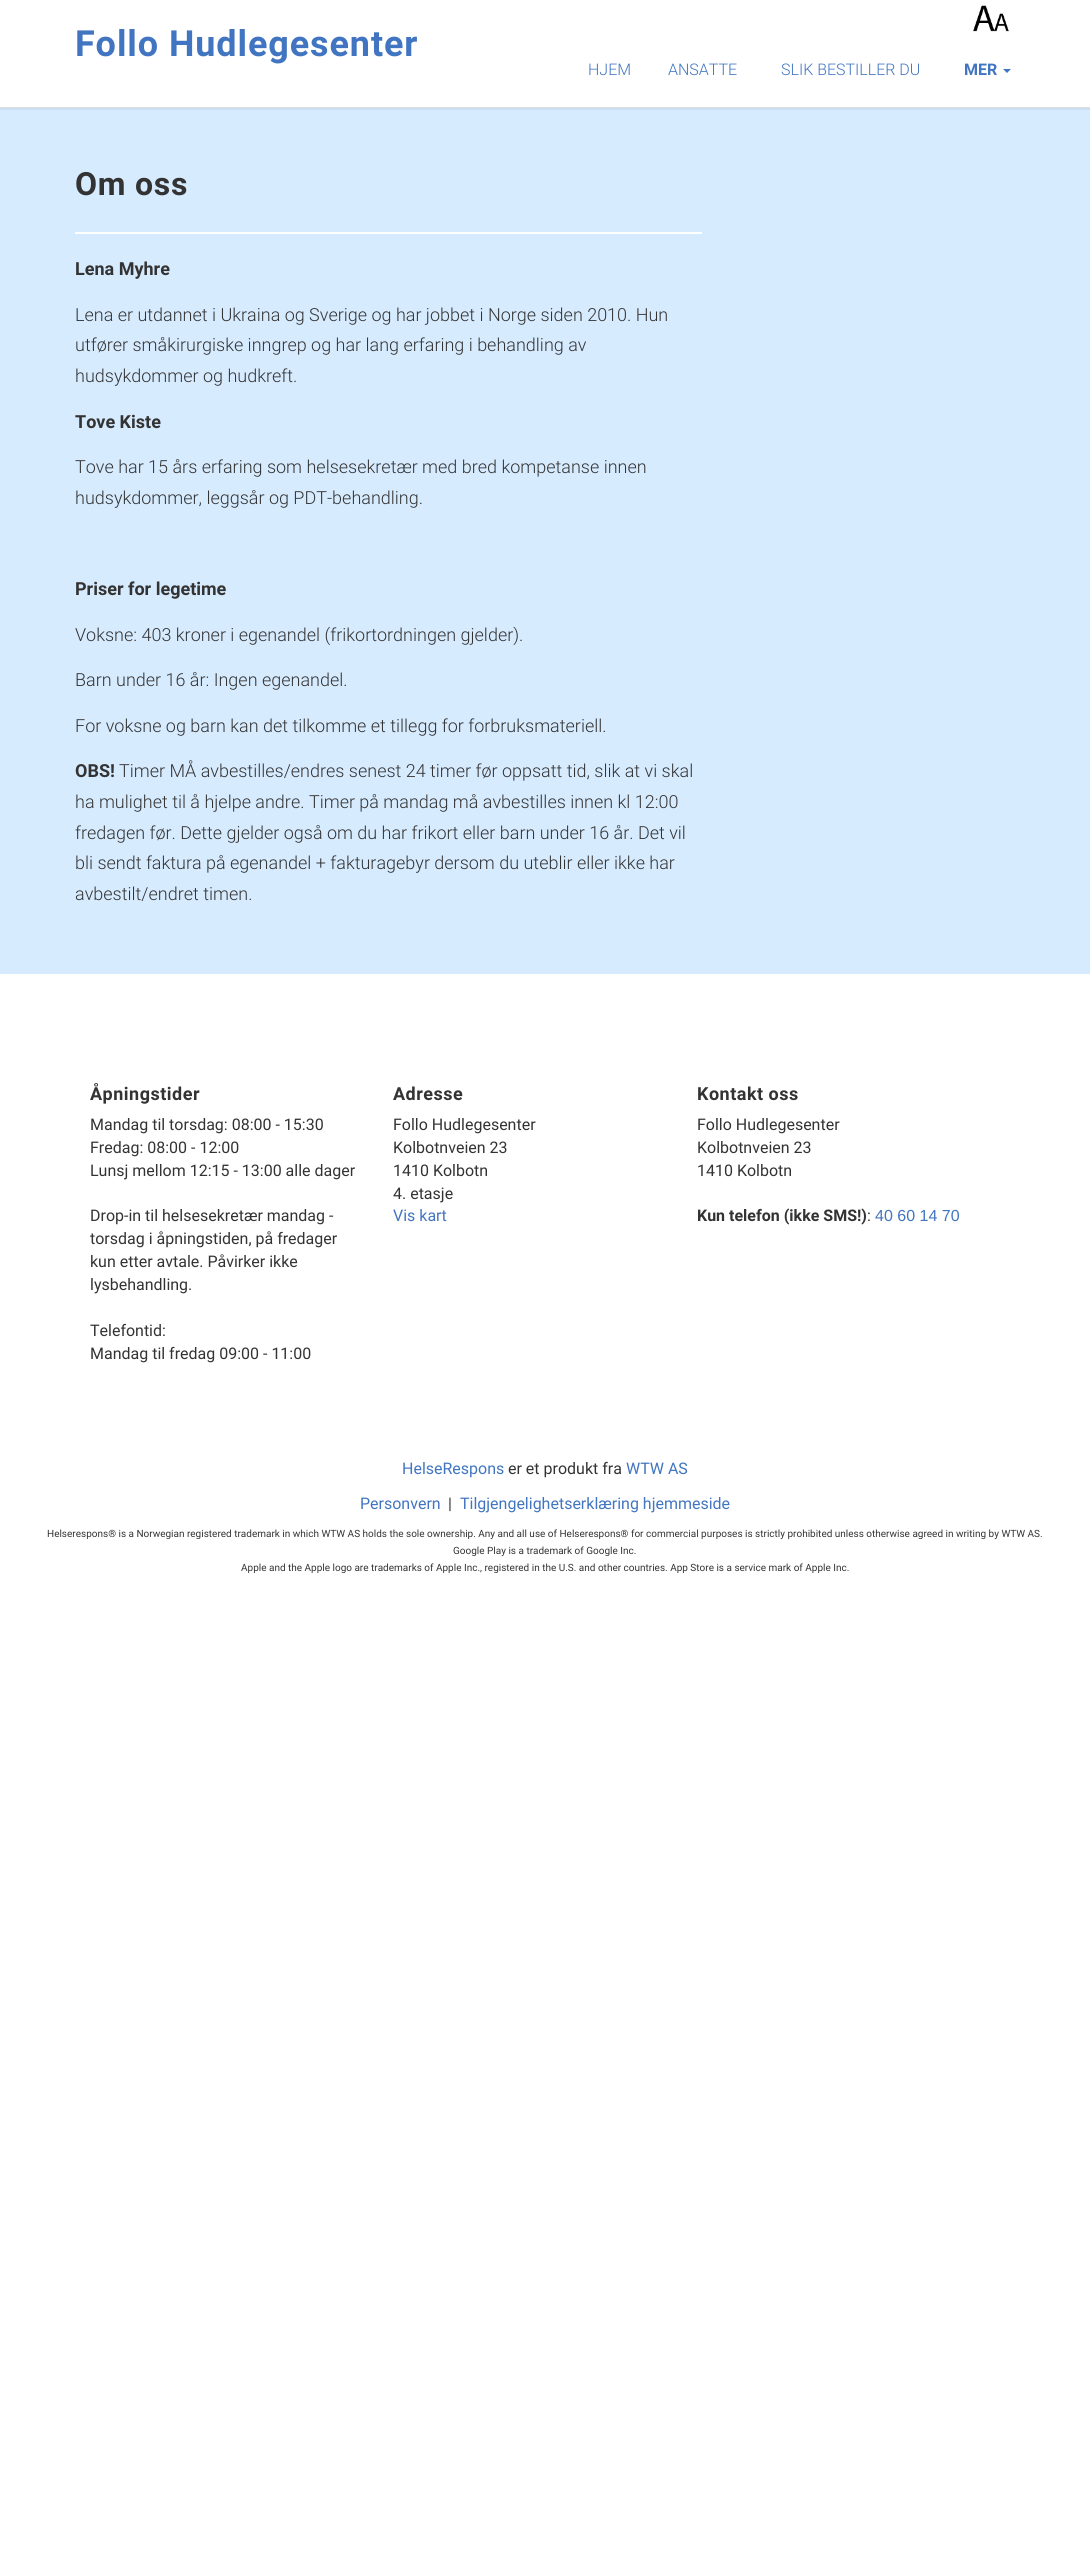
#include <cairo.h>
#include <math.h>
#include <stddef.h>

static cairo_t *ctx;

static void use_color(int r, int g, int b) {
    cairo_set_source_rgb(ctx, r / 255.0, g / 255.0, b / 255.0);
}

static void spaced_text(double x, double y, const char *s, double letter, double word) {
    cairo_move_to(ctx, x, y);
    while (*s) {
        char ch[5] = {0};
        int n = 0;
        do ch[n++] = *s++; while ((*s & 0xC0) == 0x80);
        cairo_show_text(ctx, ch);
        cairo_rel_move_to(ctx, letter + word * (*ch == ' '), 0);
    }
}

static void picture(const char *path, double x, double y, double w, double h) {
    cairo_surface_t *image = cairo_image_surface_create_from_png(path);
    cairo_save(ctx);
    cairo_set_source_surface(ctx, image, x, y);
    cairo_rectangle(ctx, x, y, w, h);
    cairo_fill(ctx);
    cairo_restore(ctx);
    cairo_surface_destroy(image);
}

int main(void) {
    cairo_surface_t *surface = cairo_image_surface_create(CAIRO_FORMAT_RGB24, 1090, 2571);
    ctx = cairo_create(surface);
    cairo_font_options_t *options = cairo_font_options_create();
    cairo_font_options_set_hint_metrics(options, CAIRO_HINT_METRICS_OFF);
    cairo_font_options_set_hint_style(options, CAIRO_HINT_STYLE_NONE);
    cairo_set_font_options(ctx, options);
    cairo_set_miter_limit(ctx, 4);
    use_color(255, 255, 255);
    cairo_paint(ctx);
    use_color(204, 223, 242);
    cairo_rectangle(ctx, 0, 108, 1090, 2);
    cairo_fill(ctx);
    use_color(221, 221, 221);
    cairo_rectangle(ctx, 0, 107, 1090, 1);
    cairo_fill(ctx);
    cairo_select_font_face(ctx, "Roboto", CAIRO_FONT_SLANT_NORMAL, CAIRO_FONT_WEIGHT_BOLD);
    cairo_set_font_size(ctx, 36);
    use_color(65, 117, 193);
    spaced_text(75, 56, "Follo Hudlegesenter", 0.9, 0);
    picture("img1.png", 973, 5, 36, 27);
    cairo_select_font_face(ctx, "Roboto Light", CAIRO_FONT_SLANT_NORMAL, CAIRO_FONT_WEIGHT_NORMAL);
    cairo_set_font_size(ctx, 16);
    cairo_move_to(ctx, 588, 75);
    cairo_show_text(ctx, "HJEM");
    cairo_move_to(ctx, 668, 75);
    cairo_show_text(ctx, "ANSATTE");
    cairo_move_to(ctx, 781, 75);
    cairo_show_text(ctx, "SLIK BESTILLER DU");
    cairo_select_font_face(ctx, "Roboto", CAIRO_FONT_SLANT_NORMAL, CAIRO_FONT_WEIGHT_BOLD);
    cairo_move_to(ctx, 964, 75);
    cairo_show_text(ctx, "MER");
    cairo_new_path(ctx);
    cairo_move_to(ctx, 1003, 69);
    cairo_line_to(ctx, 1011, 69);
    cairo_line_to(ctx, 1007, 73);
    cairo_close_path(ctx);
    cairo_fill(ctx);
    use_color(215, 235, 255);
    cairo_rectangle(ctx, 0, 110, 1090, 864);
    cairo_fill(ctx);
    cairo_set_font_size(ctx, 32);
    use_color(51, 51, 51);
    spaced_text(75, 195, "Om oss", 0.75, 0);
    use_color(255, 255, 255);
    cairo_rectangle(ctx, 75, 232, 627, 2);
    cairo_fill(ctx);
    cairo_set_font_size(ctx, 18);
    use_color(51, 51, 51);
    cairo_move_to(ctx, 75, 275);
    cairo_show_text(ctx, "Lena Myhre");
    cairo_select_font_face(ctx, "Roboto Light", CAIRO_FONT_SLANT_NORMAL, CAIRO_FONT_WEIGHT_NORMAL);
    cairo_move_to(ctx, 75, 321);
    cairo_show_text(ctx, "Lena er utdannet i Ukraina og Sverige og har jobbet i Norge siden 2010. Hun");
    cairo_move_to(ctx, 75, 351);
    cairo_show_text(ctx, "utfører småkirurgiske inngrep og har lang erfaring i behandling av");
    cairo_move_to(ctx, 75, 382);
    cairo_show_text(ctx, "hudsykdommer og hudkreft.");
    cairo_select_font_face(ctx, "Roboto", CAIRO_FONT_SLANT_NORMAL, CAIRO_FONT_WEIGHT_BOLD);
    cairo_move_to(ctx, 75, 428);
    cairo_show_text(ctx, "Tove Kiste");
    cairo_select_font_face(ctx, "Roboto Light", CAIRO_FONT_SLANT_NORMAL, CAIRO_FONT_WEIGHT_NORMAL);
    cairo_move_to(ctx, 75, 473);
    cairo_show_text(ctx, "Tove har 15 års erfaring som helsesekretær med bred kompetanse innen");
    cairo_move_to(ctx, 75, 504);
    cairo_show_text(ctx, "hudsykdommer, leggsår og PDT-behandling.");
    cairo_select_font_face(ctx, "Roboto", CAIRO_FONT_SLANT_NORMAL, CAIRO_FONT_WEIGHT_BOLD);
    cairo_move_to(ctx, 75, 595);
    cairo_show_text(ctx, "Priser for legetime");
    cairo_select_font_face(ctx, "Roboto Light", CAIRO_FONT_SLANT_NORMAL, CAIRO_FONT_WEIGHT_NORMAL);
    cairo_move_to(ctx, 75, 641);
    cairo_show_text(ctx, "Voksne: 403 kroner i egenandel (frikortordningen gjelder).");
    cairo_move_to(ctx, 75, 686);
    cairo_show_text(ctx, "Barn under 16 år: Ingen egenandel.");
    cairo_move_to(ctx, 75, 732);
    cairo_show_text(ctx, "For voksne og barn kan det tilkomme et tillegg for forbruksmateriell.");
    cairo_select_font_face(ctx, "Roboto", CAIRO_FONT_SLANT_NORMAL, CAIRO_FONT_WEIGHT_BOLD);
    cairo_move_to(ctx, 75, 777);
    cairo_show_text(ctx, "OBS!");
    cairo_select_font_face(ctx, "Roboto Light", CAIRO_FONT_SLANT_NORMAL, CAIRO_FONT_WEIGHT_NORMAL);
    cairo_move_to(ctx, 119, 777);
    cairo_show_text(ctx, "Timer MÅ avbestilles/endres senest 24 timer før oppsatt tid, slik at vi skal");
    cairo_move_to(ctx, 75, 808);
    cairo_show_text(ctx, "ha mulighet til å hjelpe andre. Timer på mandag må avbestilles innen kl 12:00");
    cairo_move_to(ctx, 75, 839);
    cairo_show_text(ctx, "fredagen før. Dette gjelder også om du har frikort eller barn under 16 år. Det vil");
    cairo_move_to(ctx, 75, 869);
    cairo_show_text(ctx, "bli sendt faktura på egenandel + fakturagebyr dersom du uteblir eller ikke har");
    cairo_move_to(ctx, 75, 900);
    cairo_show_text(ctx, "avbestilt/endret timen.");
    cairo_select_font_face(ctx, "Roboto", CAIRO_FONT_SLANT_NORMAL, CAIRO_FONT_WEIGHT_BOLD);
    spaced_text(90, 1100, "Åpningstider", 0.5, 0);
    cairo_select_font_face(ctx, "Roboto", CAIRO_FONT_SLANT_NORMAL, CAIRO_FONT_WEIGHT_NORMAL);
    cairo_set_font_size(ctx, 16);
    cairo_move_to(ctx, 90, 1130);
    cairo_show_text(ctx, "Mandag til torsdag: 08:00 - 15:30");
    cairo_move_to(ctx, 90, 1153);
    cairo_show_text(ctx, "Fredag: 08:00 - 12:00");
    cairo_move_to(ctx, 90, 1176);
    cairo_show_text(ctx, "Lunsj mellom 12:15 - 13:00 alle dager");
    cairo_move_to(ctx, 90, 1221);
    cairo_show_text(ctx, "Drop-in til helsesekretær mandag -");
    cairo_move_to(ctx, 90, 1244);
    cairo_show_text(ctx, "torsdag i åpningstiden, på fredager");
    cairo_move_to(ctx, 90, 1267);
    cairo_show_text(ctx, "kun etter avtale. Påvirker ikke");
    cairo_move_to(ctx, 90, 1290);
    cairo_show_text(ctx, "lysbehandling.");
    cairo_move_to(ctx, 90, 1336);
    cairo_show_text(ctx, "Telefontid:");
    cairo_move_to(ctx, 90, 1359);
    cairo_show_text(ctx, "Mandag til fredag 09:00 - 11:00");
    cairo_select_font_face(ctx, "Roboto", CAIRO_FONT_SLANT_NORMAL, CAIRO_FONT_WEIGHT_BOLD);
    cairo_set_font_size(ctx, 18);
    spaced_text(393, 1100, "Adresse", 0.5, 0);
    cairo_select_font_face(ctx, "Roboto", CAIRO_FONT_SLANT_NORMAL, CAIRO_FONT_WEIGHT_NORMAL);
    cairo_set_font_size(ctx, 16);
    cairo_move_to(ctx, 393, 1130);
    cairo_show_text(ctx, "Follo Hudlegesenter");
    cairo_move_to(ctx, 393, 1153);
    cairo_show_text(ctx, "Kolbotnveien 23");
    cairo_move_to(ctx, 393, 1176);
    cairo_show_text(ctx, "1410 Kolbotn");
    cairo_move_to(ctx, 393, 1199);
    cairo_show_text(ctx, "4. etasje");
    use_color(65, 117, 193);
    cairo_move_to(ctx, 393, 1221);
    cairo_show_text(ctx, "Vis kart");
    cairo_select_font_face(ctx, "Roboto", CAIRO_FONT_SLANT_NORMAL, CAIRO_FONT_WEIGHT_BOLD);
    cairo_set_font_size(ctx, 18);
    use_color(51, 51, 51);
    spaced_text(697, 1100, "Kontakt oss", 0.5, 0);
    cairo_select_font_face(ctx, "Roboto", CAIRO_FONT_SLANT_NORMAL, CAIRO_FONT_WEIGHT_NORMAL);
    cairo_set_font_size(ctx, 16);
    cairo_move_to(ctx, 697, 1130);
    cairo_show_text(ctx, "Follo Hudlegesenter");
    cairo_move_to(ctx, 697, 1153);
    cairo_show_text(ctx, "Kolbotnveien 23");
    cairo_move_to(ctx, 697, 1176);
    cairo_show_text(ctx, "1410 Kolbotn");
    cairo_select_font_face(ctx, "Roboto", CAIRO_FONT_SLANT_NORMAL, CAIRO_FONT_WEIGHT_BOLD);
    cairo_move_to(ctx, 697, 1221);
    cairo_show_text(ctx, "Kun telefon (ikke SMS!)");
    cairo_select_font_face(ctx, "Roboto", CAIRO_FONT_SLANT_NORMAL, CAIRO_FONT_WEIGHT_NORMAL);
    cairo_move_to(ctx, 867, 1221);
    cairo_show_text(ctx, ":");
    cairo_select_font_face(ctx, "Liberation Sans", CAIRO_FONT_SLANT_NORMAL, CAIRO_FONT_WEIGHT_NORMAL);
    use_color(65, 117, 193);
    cairo_move_to(ctx, 875, 1221);
    cairo_show_text(ctx, "40 60 14 70");
    cairo_select_font_face(ctx, "Roboto", CAIRO_FONT_SLANT_NORMAL, CAIRO_FONT_WEIGHT_NORMAL);
    cairo_move_to(ctx, 402, 1474);
    cairo_show_text(ctx, "HelseRespons");
    use_color(51, 51, 51);
    cairo_move_to(ctx, 508, 1474);
    cairo_show_text(ctx, "er et produkt fra");
    use_color(65, 117, 193);
    cairo_move_to(ctx, 626, 1474);
    cairo_show_text(ctx, "WTW AS");
    cairo_move_to(ctx, 360, 1509);
    cairo_show_text(ctx, "Personvern");
    use_color(51, 51, 51);
    cairo_move_to(ctx, 448, 1509);
    cairo_show_text(ctx, "|");
    use_color(65, 117, 193);
    cairo_move_to(ctx, 460, 1509);
    cairo_show_text(ctx, "Tilgjengelighetserklæring hjemmeside");
    cairo_set_font_size(ctx, 10);
    use_color(51, 51, 51);
    cairo_move_to(ctx, 47, 1537);
    cairo_show_text(ctx, "Helserespons® is a Norwegian registered trademark in which WTW AS holds the sole ownership. Any and all use of Helserespons® for commercial purposes is strictly prohibited unless otherwise agreed in writing by WTW AS.");
    cairo_move_to(ctx, 453, 1554);
    cairo_show_text(ctx, "Google Play is a trademark of Google Inc.");
    cairo_move_to(ctx, 241, 1571);
    cairo_show_text(ctx, "Apple and the Apple logo are trademarks of Apple Inc., registered in the U.S. and other countries. App Store is a service mark of Apple Inc.");
    cairo_surface_write_to_png(surface, "result.png");
    cairo_font_options_destroy(options);
    cairo_destroy(ctx);
    cairo_surface_destroy(surface);
    return 0;
}
